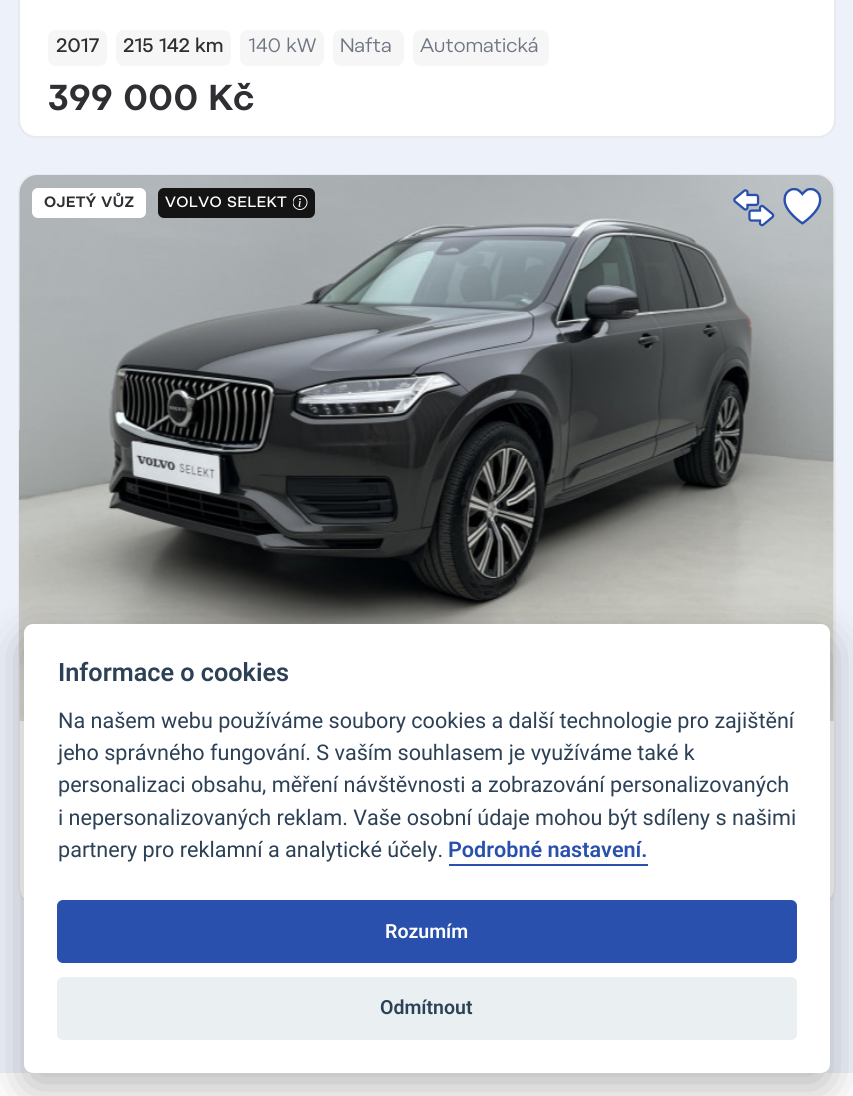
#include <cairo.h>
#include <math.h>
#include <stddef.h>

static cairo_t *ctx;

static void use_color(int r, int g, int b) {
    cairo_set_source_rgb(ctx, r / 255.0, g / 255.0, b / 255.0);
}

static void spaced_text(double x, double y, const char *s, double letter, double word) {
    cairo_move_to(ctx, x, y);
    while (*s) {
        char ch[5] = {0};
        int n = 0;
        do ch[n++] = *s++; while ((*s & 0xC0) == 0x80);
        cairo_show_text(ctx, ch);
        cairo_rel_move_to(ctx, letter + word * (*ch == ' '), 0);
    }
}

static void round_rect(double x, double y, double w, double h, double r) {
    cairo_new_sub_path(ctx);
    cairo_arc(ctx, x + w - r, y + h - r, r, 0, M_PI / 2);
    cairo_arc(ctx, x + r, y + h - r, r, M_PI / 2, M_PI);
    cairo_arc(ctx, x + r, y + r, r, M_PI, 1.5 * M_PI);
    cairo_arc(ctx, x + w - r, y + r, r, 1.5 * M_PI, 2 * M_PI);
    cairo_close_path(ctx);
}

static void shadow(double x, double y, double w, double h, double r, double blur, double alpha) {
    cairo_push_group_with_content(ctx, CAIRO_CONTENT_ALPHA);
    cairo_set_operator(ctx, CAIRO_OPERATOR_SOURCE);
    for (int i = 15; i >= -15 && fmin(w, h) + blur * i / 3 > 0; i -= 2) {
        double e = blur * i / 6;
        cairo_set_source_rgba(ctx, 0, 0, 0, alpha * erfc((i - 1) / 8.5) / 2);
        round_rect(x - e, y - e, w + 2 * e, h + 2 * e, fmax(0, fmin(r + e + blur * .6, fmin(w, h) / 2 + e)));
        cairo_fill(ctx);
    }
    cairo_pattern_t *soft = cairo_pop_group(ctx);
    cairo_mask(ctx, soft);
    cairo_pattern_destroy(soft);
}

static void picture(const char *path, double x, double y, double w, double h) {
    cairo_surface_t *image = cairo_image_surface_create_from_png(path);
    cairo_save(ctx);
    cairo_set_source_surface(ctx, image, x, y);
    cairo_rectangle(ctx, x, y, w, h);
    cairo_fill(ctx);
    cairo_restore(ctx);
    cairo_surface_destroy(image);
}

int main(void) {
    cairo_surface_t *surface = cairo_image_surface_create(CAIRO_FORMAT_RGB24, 853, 1096);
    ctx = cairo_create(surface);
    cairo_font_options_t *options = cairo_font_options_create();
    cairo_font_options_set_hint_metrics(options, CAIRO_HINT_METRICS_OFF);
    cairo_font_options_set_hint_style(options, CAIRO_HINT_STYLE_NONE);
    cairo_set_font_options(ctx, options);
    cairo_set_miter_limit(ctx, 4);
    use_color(255, 255, 255);
    cairo_paint(ctx);
    use_color(237, 241, 250);
    cairo_rectangle(ctx, 0, 0, 853, 1073);
    cairo_fill(ctx);
    use_color(255, 255, 255);
    round_rect(19, -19, 816, 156, 17);
    cairo_fill_preserve(ctx);
    use_color(231, 233, 238);
    cairo_stroke(ctx);
    use_color(246, 246, 246);
    round_rect(48, 30, 59, 36, 8);
    cairo_fill(ctx);
    cairo_select_font_face(ctx, "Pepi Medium", CAIRO_FONT_SLANT_NORMAL, CAIRO_FONT_WEIGHT_NORMAL);
    cairo_set_font_size(ctx, 19.5);
    use_color(46, 47, 50);
    spaced_text(56, 52, "2017", -0.25, 0);
    use_color(246, 246, 246);
    round_rect(116, 30, 115, 36, 8);
    cairo_fill(ctx);
    use_color(46, 47, 50);
    spaced_text(123, 52, "215 142 km", -0.25, 0);
    use_color(246, 246, 246);
    round_rect(240, 30, 84, 36, 8);
    cairo_fill(ctx);
    cairo_select_font_face(ctx, "Pepi", CAIRO_FONT_SLANT_NORMAL, CAIRO_FONT_WEIGHT_NORMAL);
    use_color(111, 117, 130);
    spaced_text(248, 52, "140 kW", -0.25, 0);
    use_color(246, 246, 246);
    round_rect(333, 30, 71, 36, 8);
    cairo_fill(ctx);
    use_color(111, 117, 130);
    spaced_text(340, 52, "Nafta", -0.25, 0);
    use_color(246, 246, 246);
    round_rect(413, 30, 136, 36, 8);
    cairo_fill(ctx);
    use_color(111, 117, 130);
    spaced_text(420, 52, "Automatická", -0.25, 0);
    cairo_select_font_face(ctx, "Pepi SemiBold", CAIRO_FONT_SLANT_NORMAL, CAIRO_FONT_WEIGHT_NORMAL);
    cairo_set_font_size(ctx, 36);
    use_color(46, 47, 50);
    cairo_move_to(ctx, 48, 110);
    cairo_show_text(ctx, "399 000 Kč");
    use_color(255, 255, 255);
    round_rect(19, 175, 816, 730, 17);
    cairo_fill_preserve(ctx);
    use_color(231, 233, 238);
    cairo_stroke(ctx);
    picture("img1.png", 19, 175, 815, 546);
    use_color(255, 255, 255);
    round_rect(32, 188, 114, 30, 6);
    cairo_fill(ctx);
    cairo_set_font_size(ctx, 15);
    use_color(46, 47, 50);
    spaced_text(44, 207, "OJETÝ VŮZ", 0.5, 0);
    use_color(20, 20, 20);
    round_rect(158, 188, 157, 30, 6);
    cairo_fill(ctx);
    cairo_select_font_face(ctx, "Pepi Medium", CAIRO_FONT_SLANT_NORMAL, CAIRO_FONT_WEIGHT_NORMAL);
    use_color(255, 255, 255);
    spaced_text(165, 207, "VOLVO SELEKT", 0.5, 0);
    picture("img2.png", 293, 195, 15, 15);
    picture("img3.png", 733, 189, 42, 38);
    picture("img4.png", 783, 188, 39, 37);
    use_color(2, 2, 3);
    shadow(24, 639, 806, 449, 9, 22.5, 0.28);
    use_color(255, 255, 255);
    round_rect(24, 624, 806, 449, 9);
    cairo_fill(ctx);
    cairo_select_font_face(ctx, "Roboto SemiBold", CAIRO_FONT_SLANT_NORMAL, CAIRO_FONT_WEIGHT_NORMAL);
    cairo_set_font_size(ctx, 25.25);
    use_color(45, 65, 86);
    cairo_move_to(ctx, 58, 681);
    cairo_show_text(ctx, "Informace o cookies");
    cairo_select_font_face(ctx, "Roboto", CAIRO_FONT_SLANT_NORMAL, CAIRO_FONT_WEIGHT_NORMAL);
    cairo_set_font_size(ctx, 21.6);
    cairo_move_to(ctx, 58, 728);
    cairo_show_text(ctx, "Na našem webu používáme soubory cookies a další technologie pro zajištění");
    cairo_move_to(ctx, 58, 760);
    cairo_show_text(ctx, "jeho správného fungování. S vaším souhlasem je využíváme také k");
    cairo_move_to(ctx, 58, 792);
    cairo_show_text(ctx, "personalizaci obsahu, měření návštěvnosti a zobrazování personalizovaných");
    cairo_move_to(ctx, 58, 825);
    cairo_show_text(ctx, "i nepersonalizovaných reklam. Vaše osobní údaje mohou být sdíleny s našimi");
    cairo_move_to(ctx, 58, 857);
    cairo_show_text(ctx, "partnery pro reklamní a analytické účely.");
    cairo_select_font_face(ctx, "Roboto SemiBold", CAIRO_FONT_SLANT_NORMAL, CAIRO_FONT_WEIGHT_NORMAL);
    use_color(41, 80, 173);
    cairo_move_to(ctx, 448, 857);
    cairo_show_text(ctx, "Podrobné nastavení.");
    cairo_rectangle(ctx, 449, 864, 199, 2);
    cairo_fill(ctx);
    round_rect(57, 900, 740, 63, 6);
    cairo_fill(ctx);
    cairo_set_font_size(ctx, 19.5);
    use_color(255, 255, 255);
    cairo_move_to(ctx, 385, 938);
    cairo_show_text(ctx, "Rozumím");
    use_color(234, 239, 242);
    round_rect(57, 977, 740, 63, 6);
    cairo_fill(ctx);
    use_color(45, 65, 86);
    cairo_move_to(ctx, 380, 1014);
    cairo_show_text(ctx, "Odmítnout");
    cairo_surface_write_to_png(surface, "result.png");
    cairo_font_options_destroy(options);
    cairo_destroy(ctx);
    cairo_surface_destroy(surface);
    return 0;
}
